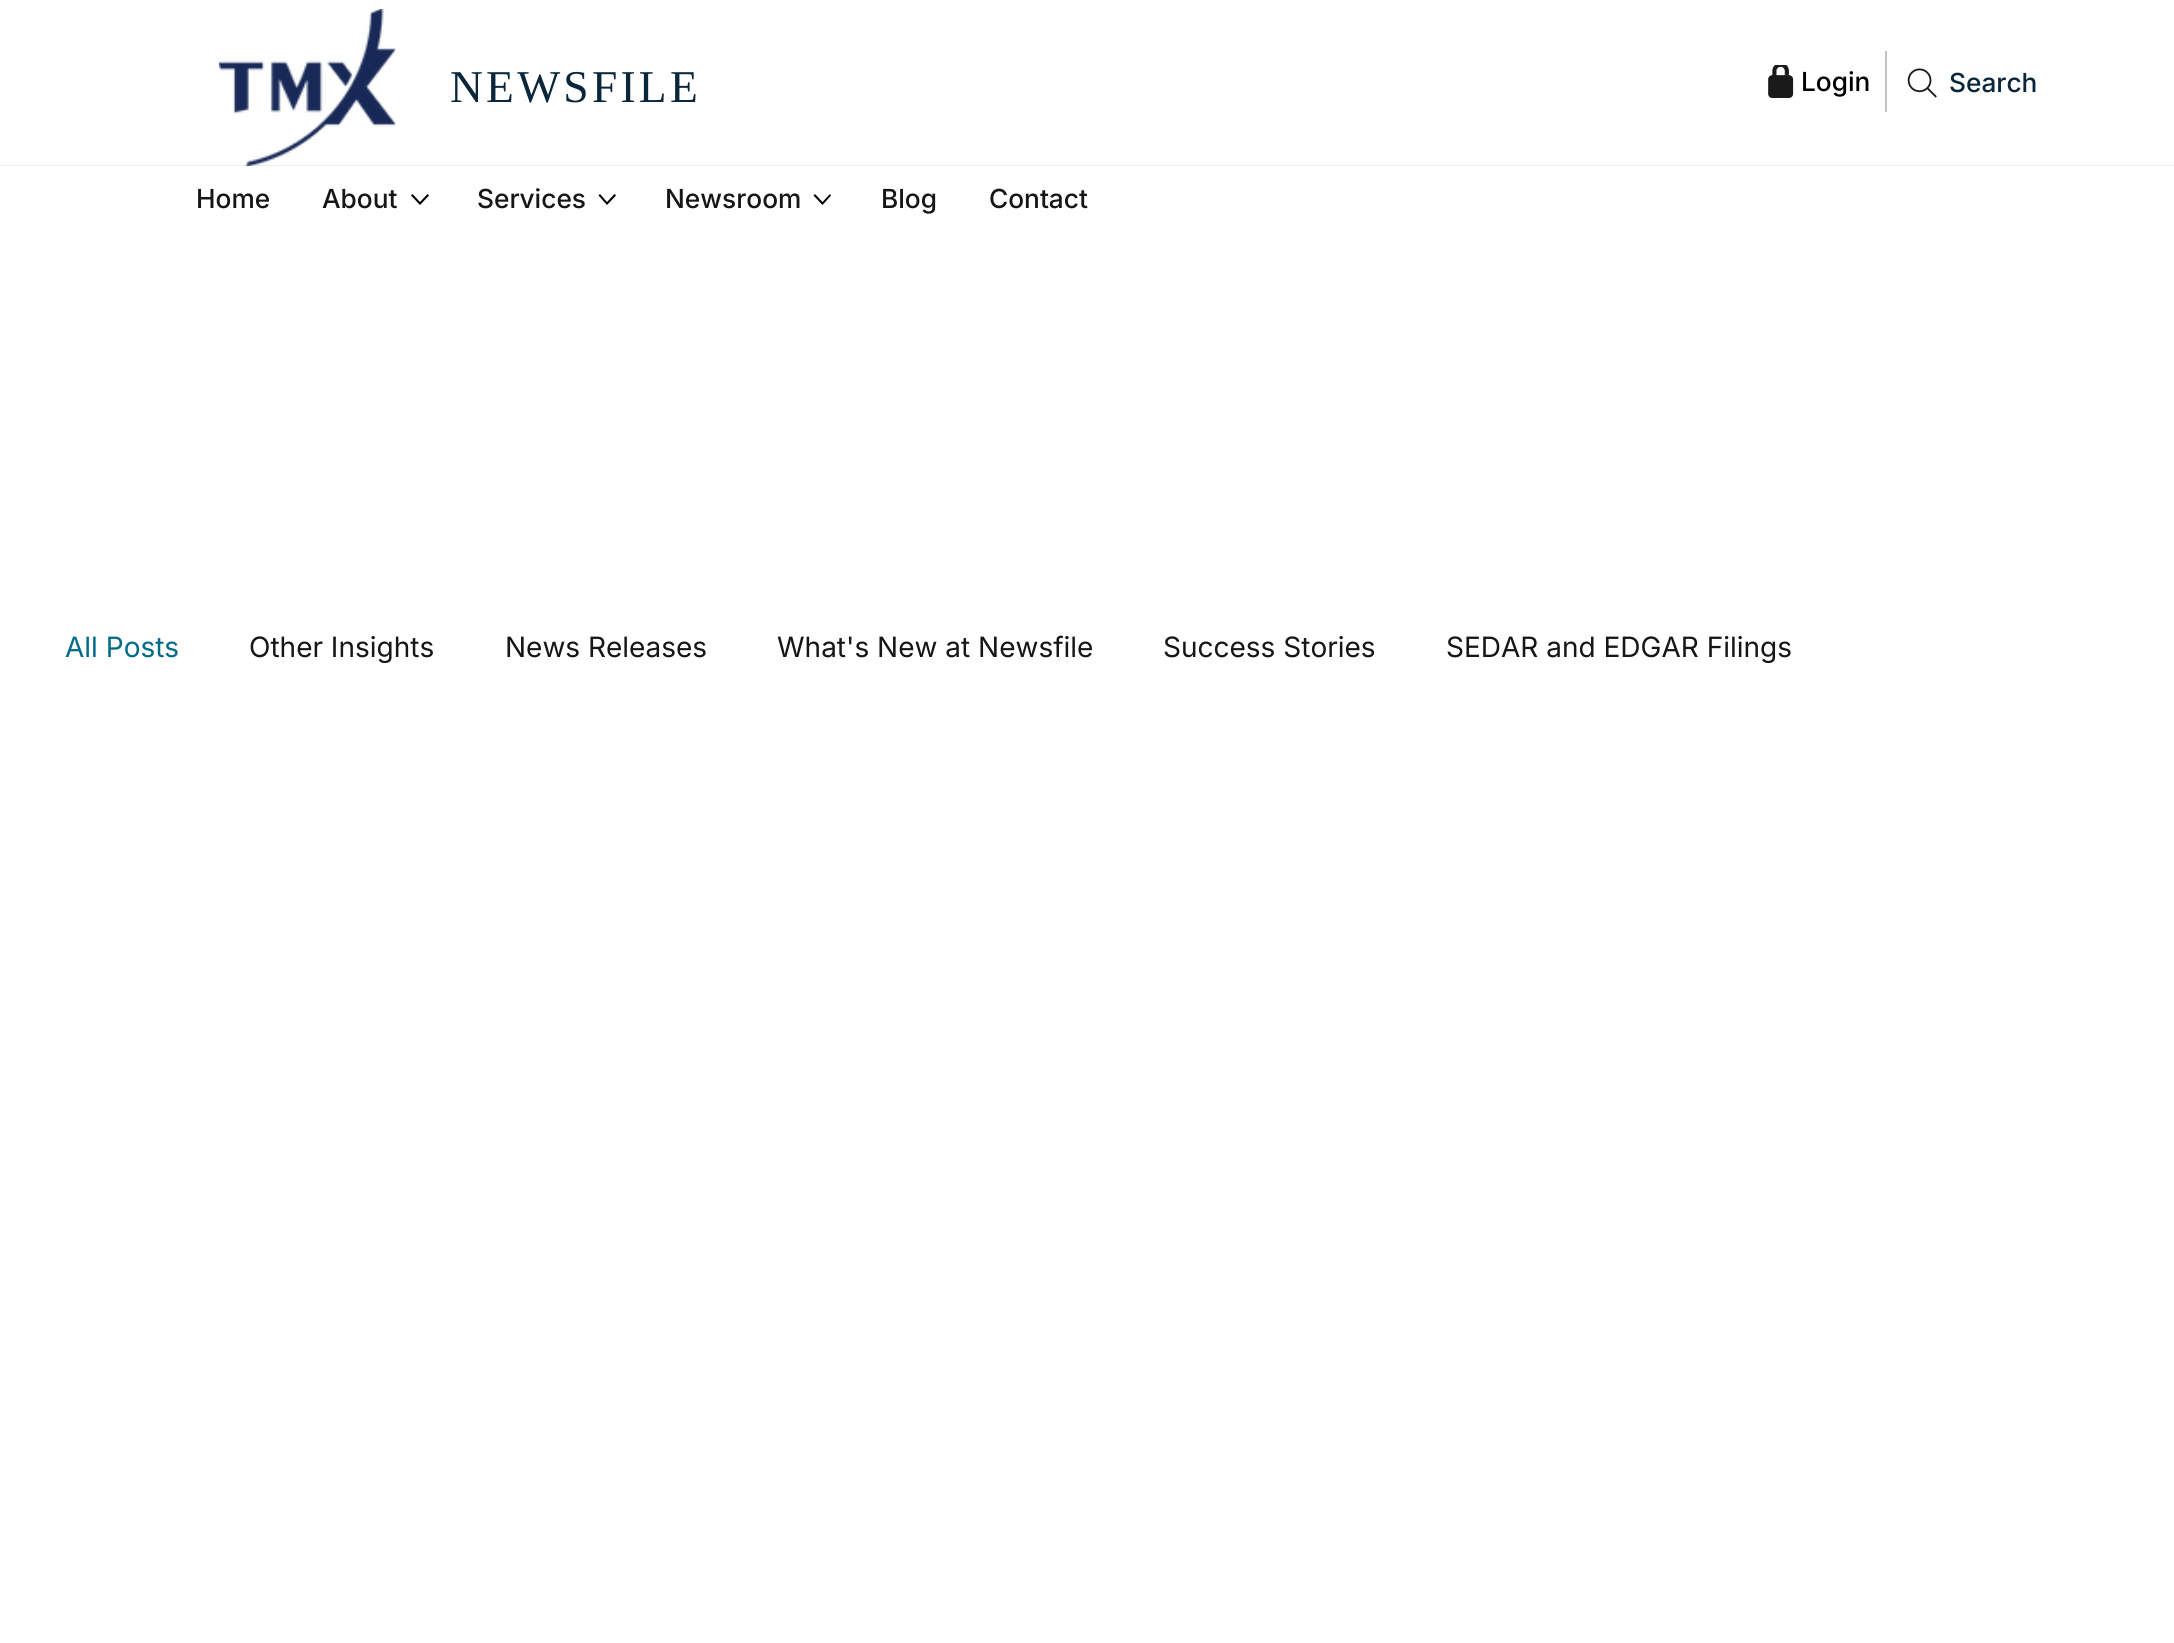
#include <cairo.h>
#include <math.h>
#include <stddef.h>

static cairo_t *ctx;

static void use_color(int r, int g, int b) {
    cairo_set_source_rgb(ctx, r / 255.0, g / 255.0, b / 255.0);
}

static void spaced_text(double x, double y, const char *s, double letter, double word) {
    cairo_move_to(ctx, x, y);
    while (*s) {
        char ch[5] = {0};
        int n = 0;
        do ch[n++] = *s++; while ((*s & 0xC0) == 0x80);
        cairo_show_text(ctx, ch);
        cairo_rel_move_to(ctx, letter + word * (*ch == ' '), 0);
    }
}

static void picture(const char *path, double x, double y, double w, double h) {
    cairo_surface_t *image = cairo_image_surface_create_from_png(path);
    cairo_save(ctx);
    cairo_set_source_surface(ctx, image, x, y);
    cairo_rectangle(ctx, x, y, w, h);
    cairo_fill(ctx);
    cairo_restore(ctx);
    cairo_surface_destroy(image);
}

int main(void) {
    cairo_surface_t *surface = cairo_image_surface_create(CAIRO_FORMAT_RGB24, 2174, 1643);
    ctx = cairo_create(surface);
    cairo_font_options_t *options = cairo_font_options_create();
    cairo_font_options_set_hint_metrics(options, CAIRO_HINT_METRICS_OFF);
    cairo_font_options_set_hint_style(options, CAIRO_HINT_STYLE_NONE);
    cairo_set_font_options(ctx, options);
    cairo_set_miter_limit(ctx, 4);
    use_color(255, 255, 255);
    cairo_paint(ctx);
    use_color(234, 239, 241);
    cairo_rectangle(ctx, 0, 165, 2174, 1);
    cairo_fill(ctx);
    picture("img1.png", 218, 8, 178, 158);
    cairo_select_font_face(ctx, "Liberation Serif", CAIRO_FONT_SLANT_NORMAL, CAIRO_FONT_WEIGHT_NORMAL);
    cairo_set_font_size(ctx, 45.5);
    use_color(9, 38, 58);
    spaced_text(450, 102, "NEWSFILE", 3.25, 0);
    use_color(194, 194, 194);
    cairo_rectangle(ctx, 1885, 51, 2, 61);
    cairo_fill(ctx);
    picture("img2.png", 1768, 65, 26, 33);
    cairo_select_font_face(ctx, "Inter Medium", CAIRO_FONT_SLANT_NORMAL, CAIRO_FONT_WEIGHT_NORMAL);
    cairo_set_font_size(ctx, 26.25);
    use_color(0, 0, 0);
    cairo_move_to(ctx, 1801, 91);
    cairo_show_text(ctx, "Login");
    picture("img3.png", 1907, 68, 30, 30);
    use_color(9, 38, 58);
    cairo_move_to(ctx, 1949, 92);
    cairo_show_text(ctx, "Search");
    use_color(22, 22, 22);
    cairo_move_to(ctx, 196, 208);
    cairo_show_text(ctx, "Home");
    cairo_move_to(ctx, 322, 208);
    cairo_show_text(ctx, "About");
    use_color(0, 0, 0);
    cairo_new_path(ctx);
    cairo_move_to(ctx, 420, 205);
    cairo_line_to(ctx, 429, 195.5);
    cairo_line_to(ctx, 427.5, 194);
    cairo_line_to(ctx, 420, 202);
    cairo_line_to(ctx, 412.5, 194);
    cairo_line_to(ctx, 411, 195.5);
    cairo_close_path(ctx);
    cairo_fill(ctx);
    use_color(22, 22, 22);
    cairo_move_to(ctx, 477, 208);
    cairo_show_text(ctx, "Services");
    use_color(0, 0, 0);
    cairo_new_path(ctx);
    cairo_move_to(ctx, 607, 205);
    cairo_line_to(ctx, 616, 195.5);
    cairo_line_to(ctx, 614.5, 194);
    cairo_line_to(ctx, 607, 202);
    cairo_line_to(ctx, 600, 194);
    cairo_line_to(ctx, 598.5, 195.5);
    cairo_close_path(ctx);
    cairo_fill(ctx);
    use_color(22, 22, 22);
    cairo_move_to(ctx, 665, 208);
    cairo_show_text(ctx, "Newsroom");
    use_color(0, 0, 0);
    cairo_new_path(ctx);
    cairo_move_to(ctx, 822.5, 205);
    cairo_line_to(ctx, 831, 195.5);
    cairo_line_to(ctx, 830, 194);
    cairo_line_to(ctx, 822.5, 202);
    cairo_line_to(ctx, 815, 194);
    cairo_line_to(ctx, 813.5, 195.5);
    cairo_close_path(ctx);
    cairo_fill(ctx);
    use_color(22, 22, 22);
    cairo_move_to(ctx, 881, 208);
    cairo_show_text(ctx, "Blog");
    cairo_move_to(ctx, 989, 208);
    cairo_show_text(ctx, "Contact");
    cairo_select_font_face(ctx, "Inter", CAIRO_FONT_SLANT_NORMAL, CAIRO_FONT_WEIGHT_NORMAL);
    cairo_set_font_size(ctx, 28);
    use_color(0, 107, 134);
    cairo_move_to(ctx, 65, 657);
    cairo_show_text(ctx, "All Posts");
    use_color(22, 22, 22);
    cairo_move_to(ctx, 249, 657);
    cairo_show_text(ctx, "Other Insights");
    cairo_move_to(ctx, 505, 657);
    cairo_show_text(ctx, "News Releases");
    cairo_move_to(ctx, 777, 657);
    cairo_show_text(ctx, "What's New at Newsfile");
    cairo_move_to(ctx, 1163, 657);
    cairo_show_text(ctx, "Success Stories");
    cairo_move_to(ctx, 1446, 657);
    cairo_show_text(ctx, "SEDAR and EDGAR Filings");
    cairo_surface_write_to_png(surface, "result.png");
    cairo_font_options_destroy(options);
    cairo_destroy(ctx);
    cairo_surface_destroy(surface);
    return 0;
}
